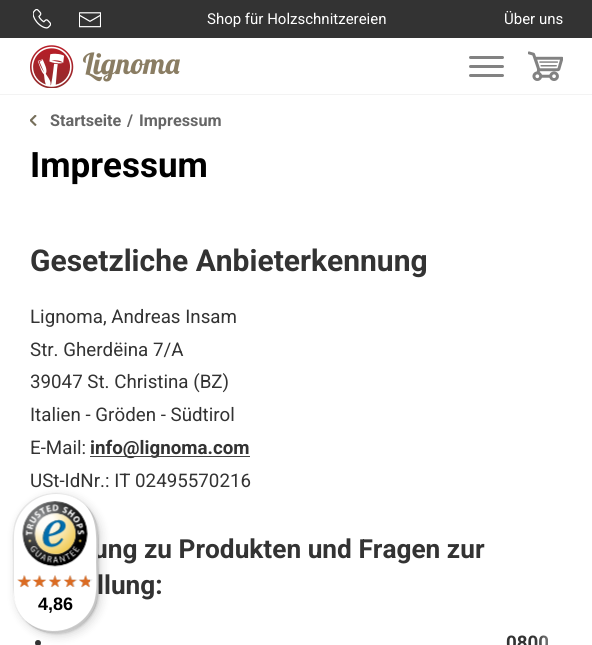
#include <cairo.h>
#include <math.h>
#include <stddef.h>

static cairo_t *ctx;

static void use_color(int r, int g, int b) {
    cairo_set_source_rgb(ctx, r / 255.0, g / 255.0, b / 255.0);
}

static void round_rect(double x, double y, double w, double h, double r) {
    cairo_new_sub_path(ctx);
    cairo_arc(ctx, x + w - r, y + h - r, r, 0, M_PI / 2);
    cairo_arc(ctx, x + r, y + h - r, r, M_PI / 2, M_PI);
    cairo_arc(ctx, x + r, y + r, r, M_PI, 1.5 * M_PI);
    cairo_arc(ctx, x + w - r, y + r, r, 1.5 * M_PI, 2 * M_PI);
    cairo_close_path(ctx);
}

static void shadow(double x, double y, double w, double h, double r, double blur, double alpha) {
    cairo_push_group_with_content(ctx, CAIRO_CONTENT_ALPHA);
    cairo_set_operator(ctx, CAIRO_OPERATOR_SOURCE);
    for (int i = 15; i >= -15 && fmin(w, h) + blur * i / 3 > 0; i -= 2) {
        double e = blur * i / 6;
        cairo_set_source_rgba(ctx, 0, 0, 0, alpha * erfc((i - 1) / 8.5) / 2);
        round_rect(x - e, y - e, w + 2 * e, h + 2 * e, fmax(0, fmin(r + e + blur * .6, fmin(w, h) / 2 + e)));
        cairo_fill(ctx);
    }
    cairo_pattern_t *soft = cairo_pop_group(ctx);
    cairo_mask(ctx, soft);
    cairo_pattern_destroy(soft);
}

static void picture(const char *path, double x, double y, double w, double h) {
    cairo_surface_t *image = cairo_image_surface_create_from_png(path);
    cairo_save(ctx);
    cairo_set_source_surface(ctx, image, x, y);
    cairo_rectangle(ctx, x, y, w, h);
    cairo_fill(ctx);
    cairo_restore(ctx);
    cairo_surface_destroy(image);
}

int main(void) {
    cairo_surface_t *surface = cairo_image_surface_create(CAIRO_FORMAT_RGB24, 592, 645);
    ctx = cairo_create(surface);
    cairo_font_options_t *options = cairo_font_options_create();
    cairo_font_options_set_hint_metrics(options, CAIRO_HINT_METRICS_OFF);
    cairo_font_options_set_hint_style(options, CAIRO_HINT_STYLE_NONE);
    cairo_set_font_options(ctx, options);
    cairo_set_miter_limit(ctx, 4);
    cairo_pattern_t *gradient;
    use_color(255, 255, 255);
    cairo_paint(ctx);
    use_color(243, 243, 243);
    cairo_rectangle(ctx, 0, 94, 592, 1);
    cairo_fill(ctx);
    use_color(51, 51, 51);
    cairo_rectangle(ctx, 0, 0, 592, 38);
    cairo_fill(ctx);
    picture("img1.png", 33, 9, 18, 20);
    picture("img2.png", 79, 12, 22, 16);
    cairo_select_font_face(ctx, "Roboto", CAIRO_FONT_SLANT_NORMAL, CAIRO_FONT_WEIGHT_NORMAL);
    cairo_set_font_size(ctx, 15);
    use_color(255, 255, 255);
    cairo_move_to(ctx, 207, 24);
    cairo_show_text(ctx, "Shop für Holzschnitzereien");
    cairo_move_to(ctx, 504, 24);
    cairo_show_text(ctx, "Über uns");
    picture("img3.png", 30, 45, 150, 43);
    use_color(130, 130, 130);
    round_rect(469, 56, 35, 3, 1.5);
    cairo_fill(ctx);
    round_rect(469, 65, 35, 3, 1.5);
    cairo_fill(ctx);
    round_rect(469, 74, 35, 3, 1.5);
    cairo_fill(ctx);
    picture("img4.png", 528, 51, 35, 30);
    picture("img5.png", 30, 115, 7, 11);
    cairo_select_font_face(ctx, "Roboto", CAIRO_FONT_SLANT_NORMAL, CAIRO_FONT_WEIGHT_BOLD);
    cairo_set_font_size(ctx, 16.25);
    use_color(102, 102, 102);
    cairo_move_to(ctx, 50, 126);
    cairo_show_text(ctx, "Startseite");
    cairo_move_to(ctx, 127, 126);
    cairo_show_text(ctx, "/");
    cairo_move_to(ctx, 139, 126);
    cairo_show_text(ctx, "Impressum");
    cairo_set_font_size(ctx, 18.75);
    use_color(51, 51, 51);
    cairo_move_to(ctx, 506, 649);
    cairo_show_text(ctx, "0800");
    gradient = cairo_pattern_create_linear(534, 323, 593, 323);
    cairo_pattern_add_color_stop_rgba(gradient, 0, 1, 1, 1, 0);
    cairo_pattern_add_color_stop_rgba(gradient, 0.75, 1, 1, 1, 1);
    cairo_set_source(ctx, gradient);
    cairo_pattern_destroy(gradient);
    cairo_rectangle(ctx, 535, 635, 14, 10);
    cairo_fill(ctx);
    cairo_set_font_size(ctx, 35);
    use_color(0, 0, 0);
    cairo_move_to(ctx, 30, 177);
    cairo_show_text(ctx, "Impressum");
    cairo_set_font_size(ctx, 30);
    use_color(51, 51, 51);
    cairo_move_to(ctx, 30, 271);
    cairo_show_text(ctx, "Gesetzliche Anbieterkennung");
    cairo_select_font_face(ctx, "Roboto", CAIRO_FONT_SLANT_NORMAL, CAIRO_FONT_WEIGHT_NORMAL);
    cairo_set_font_size(ctx, 18.75);
    cairo_move_to(ctx, 30, 323);
    cairo_show_text(ctx, "Lignoma, Andreas Insam");
    cairo_move_to(ctx, 30, 356);
    cairo_show_text(ctx, "Str. Gherdëina 7/A");
    cairo_move_to(ctx, 30, 388);
    cairo_show_text(ctx, "39047 St. Christina (BZ)");
    cairo_move_to(ctx, 30, 421);
    cairo_show_text(ctx, "Italien - Gröden - Südtirol");
    cairo_move_to(ctx, 30, 454);
    cairo_show_text(ctx, "E-Mail:");
    cairo_select_font_face(ctx, "Roboto", CAIRO_FONT_SLANT_NORMAL, CAIRO_FONT_WEIGHT_BOLD);
    cairo_move_to(ctx, 90, 454);
    cairo_show_text(ctx, "info@lignoma.com");
    use_color(68, 68, 68);
    cairo_rectangle(ctx, 90, 456, 160, 1);
    cairo_fill(ctx);
    cairo_select_font_face(ctx, "Roboto", CAIRO_FONT_SLANT_NORMAL, CAIRO_FONT_WEIGHT_NORMAL);
    use_color(51, 51, 51);
    cairo_move_to(ctx, 30, 487);
    cairo_show_text(ctx, "USt-IdNr.: IT 02495570216");
    cairo_select_font_face(ctx, "Roboto", CAIRO_FONT_SLANT_NORMAL, CAIRO_FONT_WEIGHT_BOLD);
    cairo_set_font_size(ctx, 26.25);
    cairo_move_to(ctx, 93, 558);
    cairo_show_text(ctx, "ung zu Produkten und Fragen zur");
    cairo_move_to(ctx, 97, 594);
    cairo_show_text(ctx, "llung:");
    cairo_new_path(ctx);
    cairo_arc(ctx, 38, 643, 3, 0, 2 * M_PI);
    cairo_fill(ctx);
    use_color(0, 0, 0);
    shadow(16, 496, 85, 140, 42.5, 5, 0.15);
    shadow(14, 494, 85, 140, 42.5, 1, 0.15);
    use_color(255, 255, 255);
    round_rect(13, 493, 85, 140, 42.5);
    cairo_fill(ctx);
    use_color(229, 229, 229);
    cairo_new_path(ctx);
    cairo_move_to(ctx, 56, 494);
    cairo_curve_to(ctx, 68, 494, 78, 498, 86, 506);
    cairo_curve_to(ctx, 65, 484, 28, 491, 16, 519);
    cairo_curve_to(ctx, 11, 531, 13, 549, 13, 563);
    cairo_curve_to(ctx, 13, 584, 10, 605, 26, 621);
    cairo_curve_to(ctx, 18, 613, 14, 603, 14, 591);
    cairo_line_to(ctx, 14, 536);
    cairo_curve_to(ctx, 14, 513, 33, 494, 56, 494);
    cairo_close_path(ctx);
    cairo_fill(ctx);
    cairo_set_source_rgba(ctx, 0, 0, 0, 0.2);
    cairo_new_path(ctx);
    cairo_move_to(ctx, 25, 620);
    cairo_curve_to(ctx, 45, 642, 83, 635, 95, 607);
    cairo_curve_to(ctx, 100, 595, 98, 577, 98, 563);
    cairo_curve_to(ctx, 98, 542, 102, 520, 85, 505);
    cairo_curve_to(ctx, 99, 520, 96, 542, 96, 562);
    cairo_curve_to(ctx, 96, 575, 98, 593, 93, 605);
    cairo_curve_to(ctx, 81, 633, 46, 639, 25, 620);
    cairo_close_path(ctx);
    cairo_fill(ctx);
    cairo_set_source_rgba(ctx, 0.196, 0.196, 0.196, 0.2);
    cairo_new_path(ctx);
    cairo_move_to(ctx, 25, 621);
    cairo_curve_to(ctx, 46, 641, 83, 635, 95, 607);
    cairo_curve_to(ctx, 100, 595, 98, 577, 98, 563);
    cairo_curve_to(ctx, 98, 542, 101, 521, 86, 505);
    cairo_curve_to(ctx, 93, 513, 97, 523, 97, 534);
    cairo_line_to(ctx, 97, 589);
    cairo_curve_to(ctx, 97, 613, 78, 632, 54, 632);
    cairo_curve_to(ctx, 43, 632, 33, 628, 25, 621);
    cairo_close_path(ctx);
    cairo_fill(ctx);
    cairo_set_source_rgba(ctx, 1, 1, 1, 0.3);
    cairo_new_path(ctx);
    cairo_move_to(ctx, 25, 621);
    cairo_curve_to(ctx, 46, 641, 83, 635, 95, 607);
    cairo_curve_to(ctx, 100, 595, 98, 577, 98, 563);
    cairo_curve_to(ctx, 98, 542, 101, 521, 86, 505);
    cairo_curve_to(ctx, 93, 513, 97, 523, 97, 534);
    cairo_line_to(ctx, 97, 589);
    cairo_curve_to(ctx, 97, 613, 78, 632, 54, 632);
    cairo_curve_to(ctx, 43, 632, 33, 628, 25, 621);
    cairo_close_path(ctx);
    cairo_fill(ctx);
    picture("img6.png", 22, 501, 66, 66);
    picture("img7.png", 17, 575, 14, 13);
    picture("img8.png", 34, 575, 12, 12);
    picture("img9.png", 49, 575, 12, 13);
    picture("img10.png", 64, 575, 14, 12);
    picture("img11.png", 79, 575, 14, 13);
    picture("img12.png", 17, 575, 15, 12);
    picture("img13.png", 32, 575, 15, 12);
    picture("img14.png", 48, 575, 14, 12);
    picture("img15.png", 63, 575, 14, 12);
    picture("img16.png", 78, 575, 12, 12);
    cairo_select_font_face(ctx, "Liberation Sans", CAIRO_FONT_SLANT_NORMAL, CAIRO_FONT_WEIGHT_BOLD);
    cairo_set_font_size(ctx, 18);
    use_color(0, 0, 0);
    cairo_move_to(ctx, 38, 610);
    cairo_show_text(ctx, "4,86");
    cairo_surface_write_to_png(surface, "result.png");
    cairo_font_options_destroy(options);
    cairo_destroy(ctx);
    cairo_surface_destroy(surface);
    return 0;
}
